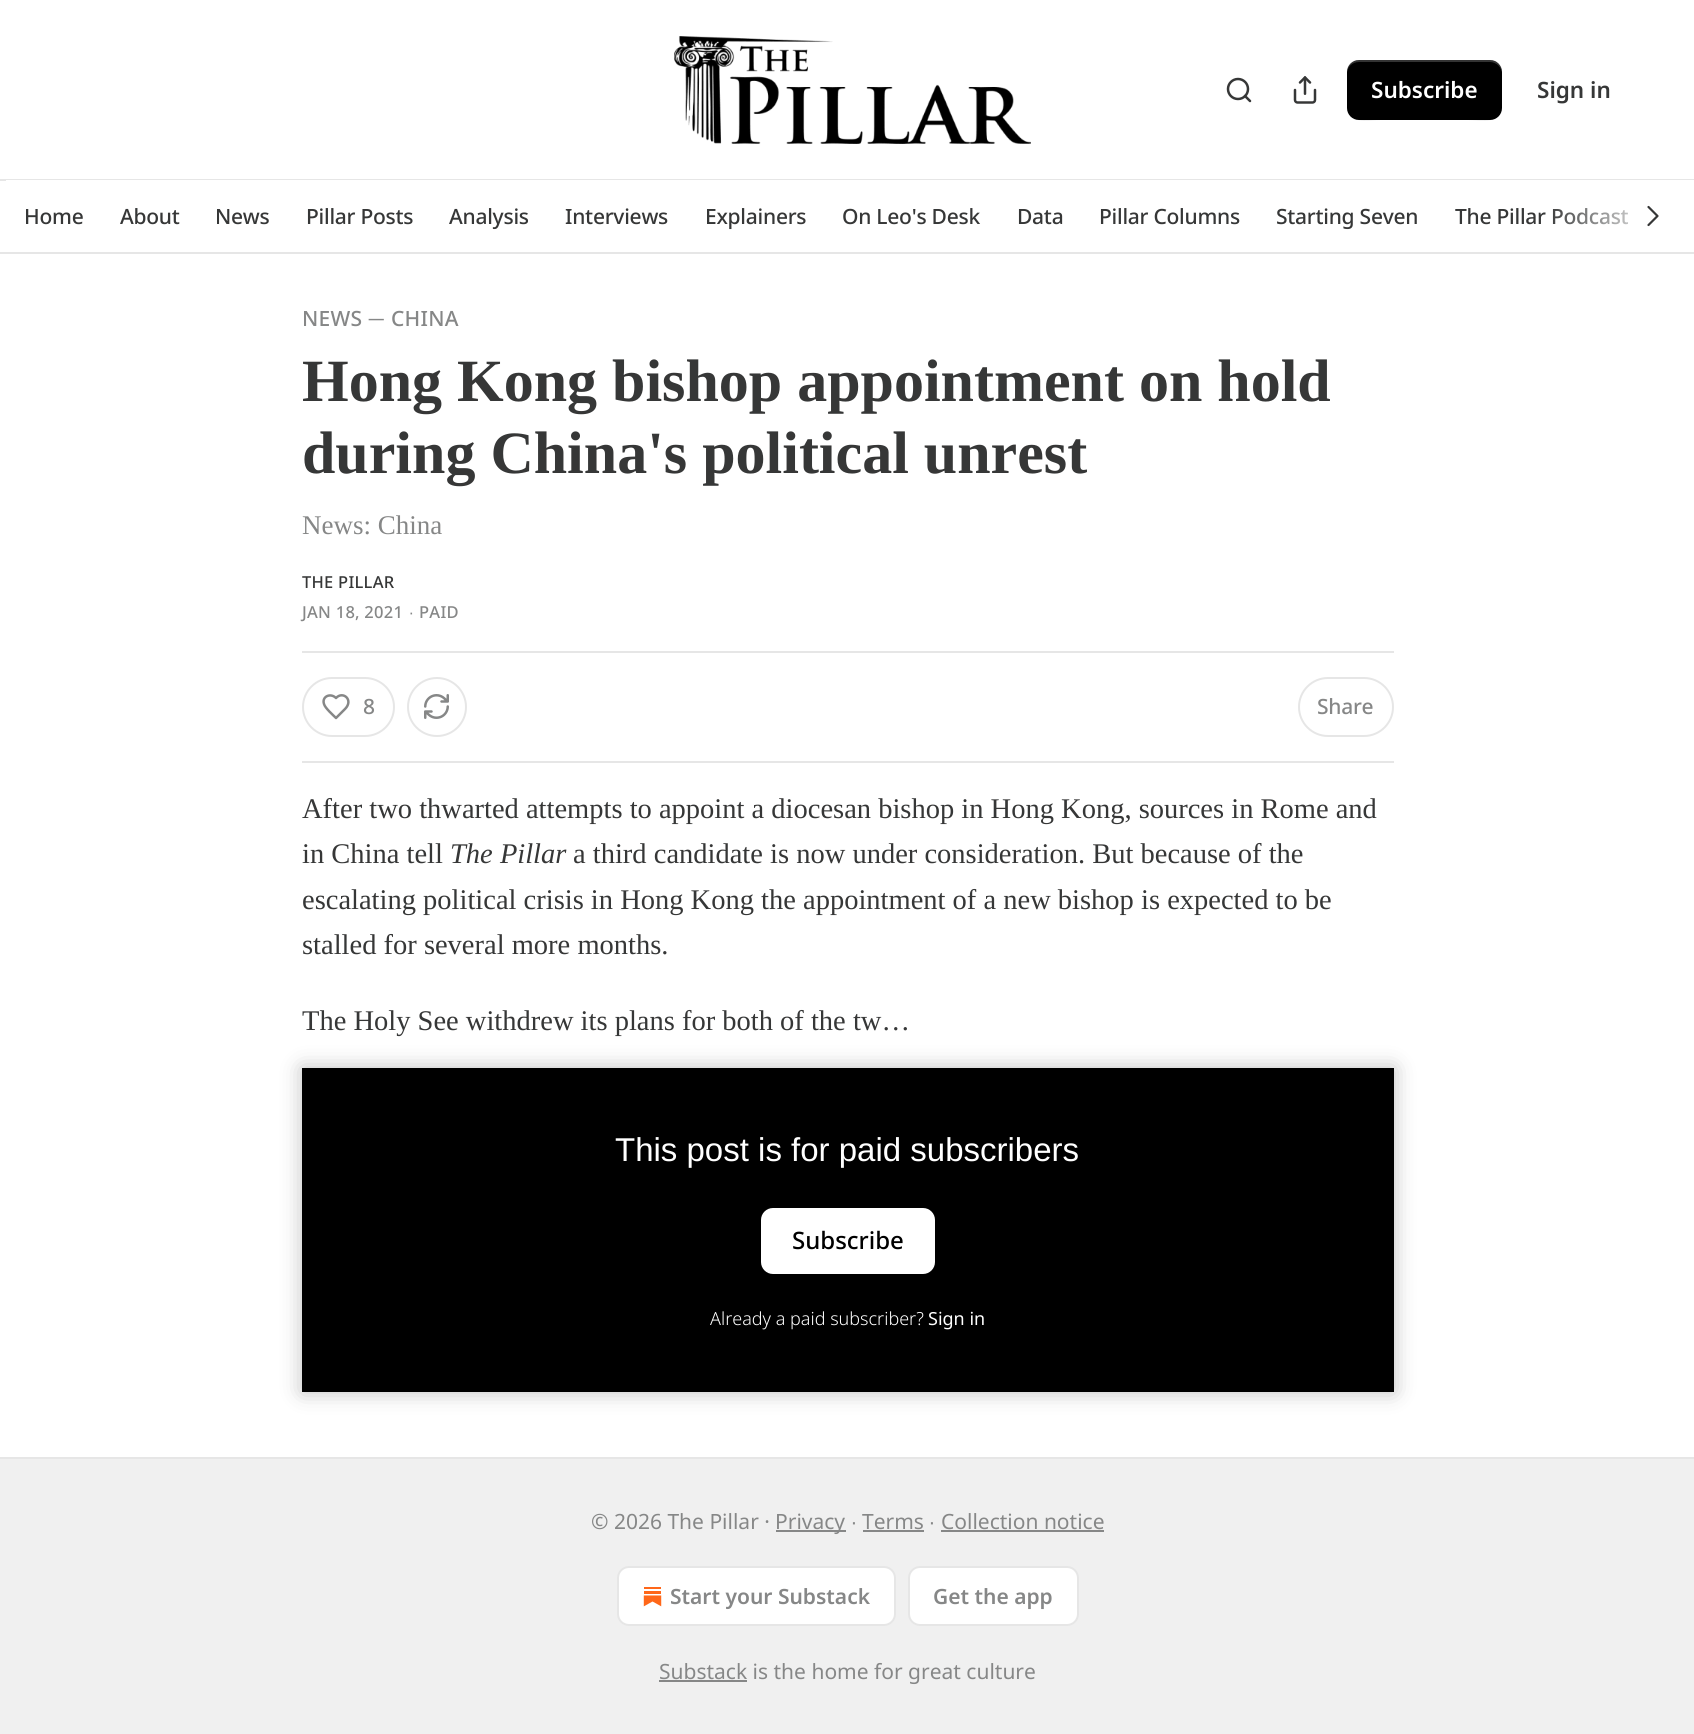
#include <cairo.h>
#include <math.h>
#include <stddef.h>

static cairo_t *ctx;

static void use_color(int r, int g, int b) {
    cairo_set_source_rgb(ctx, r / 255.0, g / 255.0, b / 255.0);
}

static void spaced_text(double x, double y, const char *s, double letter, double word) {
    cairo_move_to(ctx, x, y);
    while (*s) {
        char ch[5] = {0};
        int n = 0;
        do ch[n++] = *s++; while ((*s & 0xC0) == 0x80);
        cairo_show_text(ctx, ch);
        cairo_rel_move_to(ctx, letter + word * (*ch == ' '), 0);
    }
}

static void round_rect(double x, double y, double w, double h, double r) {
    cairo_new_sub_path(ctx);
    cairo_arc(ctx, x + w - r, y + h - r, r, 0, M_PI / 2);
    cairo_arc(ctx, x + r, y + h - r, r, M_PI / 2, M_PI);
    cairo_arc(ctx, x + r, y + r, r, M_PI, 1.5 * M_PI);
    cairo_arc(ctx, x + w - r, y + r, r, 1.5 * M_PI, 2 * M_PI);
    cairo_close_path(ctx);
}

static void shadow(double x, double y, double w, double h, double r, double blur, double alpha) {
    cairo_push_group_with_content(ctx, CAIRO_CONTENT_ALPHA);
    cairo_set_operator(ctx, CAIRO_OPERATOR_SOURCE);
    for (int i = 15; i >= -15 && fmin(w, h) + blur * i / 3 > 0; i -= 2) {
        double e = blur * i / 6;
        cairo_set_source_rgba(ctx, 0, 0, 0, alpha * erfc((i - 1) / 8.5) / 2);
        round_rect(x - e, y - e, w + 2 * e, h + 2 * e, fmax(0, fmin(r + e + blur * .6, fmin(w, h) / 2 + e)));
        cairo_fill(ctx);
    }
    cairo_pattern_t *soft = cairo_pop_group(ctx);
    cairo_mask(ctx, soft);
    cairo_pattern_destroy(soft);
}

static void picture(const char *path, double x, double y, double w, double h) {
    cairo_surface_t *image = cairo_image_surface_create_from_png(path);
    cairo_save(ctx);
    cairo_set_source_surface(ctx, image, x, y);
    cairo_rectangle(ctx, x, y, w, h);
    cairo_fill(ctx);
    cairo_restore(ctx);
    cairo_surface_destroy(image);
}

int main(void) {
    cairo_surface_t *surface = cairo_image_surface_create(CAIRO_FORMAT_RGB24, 1694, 1734);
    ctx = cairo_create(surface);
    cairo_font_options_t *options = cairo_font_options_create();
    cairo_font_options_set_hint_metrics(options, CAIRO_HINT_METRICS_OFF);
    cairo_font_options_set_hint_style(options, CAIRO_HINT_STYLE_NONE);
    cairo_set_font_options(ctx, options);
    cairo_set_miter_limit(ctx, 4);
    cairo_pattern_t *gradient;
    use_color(255, 255, 255);
    cairo_paint(ctx);
    picture("img1.png", 674, 36, 357, 108);
    cairo_arc(ctx, 1238, 89, 10, 0, 2 * M_PI);
    use_color(54, 55, 55);
    cairo_set_line_width(ctx, 2.5);
    cairo_stroke(ctx);
    cairo_new_path(ctx);
    cairo_move_to(ctx, 1250, 101);
    cairo_line_to(ctx, 1245, 96);
    cairo_set_line_cap(ctx, CAIRO_LINE_CAP_ROUND);
    cairo_set_line_join(ctx, CAIRO_LINE_JOIN_ROUND);
    cairo_stroke(ctx);
    picture("img2.png", 1293, 76, 24, 28);
    use_color(0, 0, 0);
    round_rect(1347, 60, 155, 60, 12);
    cairo_fill(ctx);
    cairo_set_source_rgba(ctx, 0, 0, 0, 0.1);
    cairo_new_path(ctx);
    cairo_move_to(ctx, 1347, 106);
    cairo_curve_to(ctx, 1347, 125, 1367, 120, 1381, 120);
    cairo_line_to(ctx, 1468, 120);
    cairo_curve_to(ctx, 1482, 120, 1502, 125, 1502, 106);
    cairo_curve_to(ctx, 1502, 113, 1496, 118, 1490, 118);
    cairo_line_to(ctx, 1359, 118);
    cairo_curve_to(ctx, 1352, 118, 1347, 113, 1347, 106);
    cairo_close_path(ctx);
    cairo_fill(ctx);
    cairo_set_source_rgba(ctx, 1, 1, 1, 0.2);
    cairo_new_path(ctx);
    cairo_move_to(ctx, 1359, 62);
    cairo_line_to(ctx, 1490, 62);
    cairo_curve_to(ctx, 1496, 62, 1502, 67, 1502, 74);
    cairo_curve_to(ctx, 1502, 55, 1482, 60, 1468, 60);
    cairo_line_to(ctx, 1381, 60);
    cairo_curve_to(ctx, 1367, 60, 1347, 55, 1347, 74);
    cairo_curve_to(ctx, 1347, 67, 1352, 62, 1359, 62);
    cairo_close_path(ctx);
    cairo_fill(ctx);
    cairo_select_font_face(ctx, "Noto Sans SemiBold", CAIRO_FONT_SLANT_NORMAL, CAIRO_FONT_WEIGHT_NORMAL);
    cairo_set_font_size(ctx, 22.5);
    use_color(255, 255, 255);
    cairo_move_to(ctx, 1371, 98);
    cairo_show_text(ctx, "Subscribe");
    use_color(54, 55, 55);
    cairo_move_to(ctx, 1537, 98);
    cairo_show_text(ctx, "Sign in");
    use_color(230, 230, 230);
    cairo_rectangle(ctx, 0, 179, 1694, 2);
    cairo_fill(ctx);
    cairo_rectangle(ctx, 0, 252, 1694, 2);
    cairo_fill(ctx);
    use_color(255, 255, 255);
    cairo_rectangle(ctx, 6, 180, 1658, 1);
    cairo_fill(ctx);
    cairo_select_font_face(ctx, "Noto Sans Medium", CAIRO_FONT_SLANT_NORMAL, CAIRO_FONT_WEIGHT_NORMAL);
    cairo_set_font_size(ctx, 21);
    use_color(54, 55, 55);
    spaced_text(1455, 224, "The Pillar Podcast", -0.25, 0);
    gradient = cairo_pattern_create_linear(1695, 216, 1545, 216);
    cairo_pattern_add_color_stop_rgba(gradient, 0.2, 1, 1, 1, 1);
    cairo_pattern_add_color_stop_rgba(gradient, 1, 1, 1, 1, 0);
    cairo_set_source(ctx, gradient);
    cairo_pattern_destroy(gradient);
    cairo_rectangle(ctx, 1553, 180, 141, 45);
    cairo_fill(ctx);
    cairo_new_path(ctx);
    cairo_move_to(ctx, 1648.5, 225);
    cairo_line_to(ctx, 1657.5, 216);
    cairo_line_to(ctx, 1648.5, 207);
    use_color(54, 55, 55);
    cairo_set_line_width(ctx, 2.2);
    cairo_stroke(ctx);
    spaced_text(24, 224, "Home", -0.25, 0);
    spaced_text(120, 224, "About", -0.25, 0);
    spaced_text(215, 224, "News", -0.25, 0);
    spaced_text(306, 224, "Pillar Posts", -0.25, 0);
    spaced_text(449, 224, "Analysis", -0.25, 0);
    spaced_text(565, 224, "Interviews", -0.25, 0);
    spaced_text(705, 224, "Explainers", -0.25, 0);
    spaced_text(842, 224, "On Leo's Desk", -0.25, 0);
    spaced_text(1017, 224, "Data", -0.25, 0);
    spaced_text(1099, 224, "Pillar Columns", -0.25, 0);
    spaced_text(1276, 224, "Starting Seven", -0.25, 0);
    use_color(134, 135, 135);
    spaced_text(302, 326, "NEWS", 0.25, 0);
    cairo_set_font_size(ctx, 16.5);
    spaced_text(368, 324, "—", 0.25, 0);
    cairo_set_font_size(ctx, 21);
    spaced_text(391, 326, "CHINA", 0.25, 0);
    cairo_select_font_face(ctx, "Liberation Serif", CAIRO_FONT_SLANT_NORMAL, CAIRO_FONT_WEIGHT_BOLD);
    cairo_set_font_size(ctx, 60);
    use_color(54, 55, 55);
    cairo_move_to(ctx, 302, 401);
    cairo_show_text(ctx, "Hong Kong bishop appointment on hold");
    cairo_move_to(ctx, 302, 473);
    cairo_show_text(ctx, "during China's political unrest");
    cairo_select_font_face(ctx, "Liberation Serif", CAIRO_FONT_SLANT_NORMAL, CAIRO_FONT_WEIGHT_NORMAL);
    cairo_set_font_size(ctx, 27);
    use_color(134, 135, 135);
    cairo_move_to(ctx, 302, 534);
    cairo_show_text(ctx, "News: China");
    cairo_select_font_face(ctx, "Noto Sans Medium", CAIRO_FONT_SLANT_NORMAL, CAIRO_FONT_WEIGHT_NORMAL);
    cairo_set_font_size(ctx, 16.5);
    use_color(54, 55, 55);
    spaced_text(302, 588, "THE PILLAR", 0.25, 0);
    use_color(134, 135, 135);
    spaced_text(302, 618, "JAN 18, 2021", 0.25, 0);
    cairo_select_font_face(ctx, "Liberation Sans", CAIRO_FONT_SLANT_NORMAL, CAIRO_FONT_WEIGHT_NORMAL);
    spaced_text(409, 618, "∙", 0.25, 0);
    cairo_select_font_face(ctx, "Noto Sans Medium", CAIRO_FONT_SLANT_NORMAL, CAIRO_FONT_WEIGHT_NORMAL);
    spaced_text(419, 618, "PAID", 0.25, 0);
    use_color(230, 230, 230);
    cairo_rectangle(ctx, 302, 651, 1092, 2);
    cairo_fill(ctx);
    cairo_rectangle(ctx, 302, 761, 1092, 2);
    cairo_fill(ctx);
    round_rect(303, 678, 91, 58, 29);
    cairo_set_line_width(ctx, 2);
    cairo_set_line_cap(ctx, CAIRO_LINE_CAP_BUTT);
    cairo_set_line_join(ctx, CAIRO_LINE_JOIN_MITER);
    cairo_stroke(ctx);
    cairo_new_path(ctx);
    cairo_move_to(ctx, 345, 709);
    cairo_curve_to(ctx, 354, 700, 343, 690.5, 336, 698);
    cairo_curve_to(ctx, 330.5, 692.5, 321.5, 696.5, 324, 704);
    cairo_curve_to(ctx, 325, 708, 333, 715, 336, 718);
    cairo_close_path(ctx);
    use_color(134, 135, 135);
    cairo_set_line_width(ctx, 2.5);
    cairo_set_line_cap(ctx, CAIRO_LINE_CAP_ROUND);
    cairo_set_line_join(ctx, CAIRO_LINE_JOIN_ROUND);
    cairo_stroke(ctx);
    cairo_set_font_size(ctx, 21);
    spaced_text(363, 714, "8", -0.25, 0);
    cairo_new_path(ctx);
    cairo_arc(ctx, 437, 707, 29, 0, 2 * M_PI);
    use_color(230, 230, 230);
    cairo_set_line_width(ctx, 2);
    cairo_set_line_cap(ctx, CAIRO_LINE_CAP_BUTT);
    cairo_set_line_join(ctx, CAIRO_LINE_JOIN_MITER);
    cairo_stroke(ctx);
    picture("img3.png", 424, 694, 25, 25);
    round_rect(1299, 678, 94, 58, 29);
    cairo_stroke(ctx);
    use_color(134, 135, 135);
    spaced_text(1317, 714, "Share", -0.25, 0);
    cairo_select_font_face(ctx, "Liberation Serif", CAIRO_FONT_SLANT_NORMAL, CAIRO_FONT_WEIGHT_NORMAL);
    cairo_set_font_size(ctx, 28.5);
    use_color(54, 55, 55);
    cairo_move_to(ctx, 302, 818);
    cairo_show_text(ctx, "After two thwarted attempts to appoint a diocesan bishop in Hong Kong, sources in Rome and");
    cairo_move_to(ctx, 302, 863);
    cairo_show_text(ctx, "in China tell");
    cairo_select_font_face(ctx, "Liberation Serif", CAIRO_FONT_SLANT_ITALIC, CAIRO_FONT_WEIGHT_NORMAL);
    cairo_move_to(ctx, 450, 863);
    cairo_show_text(ctx, "The Pillar");
    cairo_select_font_face(ctx, "Liberation Serif", CAIRO_FONT_SLANT_NORMAL, CAIRO_FONT_WEIGHT_NORMAL);
    cairo_move_to(ctx, 573, 863);
    cairo_show_text(ctx, "a third candidate is now under consideration. But because of the");
    cairo_move_to(ctx, 302, 909);
    cairo_show_text(ctx, "escalating political crisis in Hong Kong the appointment of a new bishop is expected to be");
    cairo_move_to(ctx, 302, 954);
    cairo_show_text(ctx, "stalled for several more months.");
    cairo_move_to(ctx, 302, 1030);
    cairo_show_text(ctx, "The Holy See withdrew its plans for both of the tw…");
    use_color(0, 0, 0);
    cairo_rectangle(ctx, 302, 1068, 1092, 324);
    cairo_fill(ctx);
    use_color(255, 255, 255);
    round_rect(762, 1209, 172, 64, 11);
    cairo_fill_preserve(ctx);
    cairo_stroke(ctx);
    cairo_save(ctx);
    cairo_set_fill_rule(ctx, CAIRO_FILL_RULE_EVEN_ODD);
    cairo_new_path(ctx);
    cairo_move_to(ctx, 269, 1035);
    cairo_line_to(ctx, 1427, 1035);
    cairo_line_to(ctx, 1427, 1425);
    cairo_line_to(ctx, 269, 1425);
    cairo_close_path(ctx);
    cairo_move_to(ctx, 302, 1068);
    cairo_line_to(ctx, 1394, 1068);
    cairo_line_to(ctx, 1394, 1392);
    cairo_line_to(ctx, 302, 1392);
    cairo_close_path(ctx);
    cairo_clip(ctx);
    use_color(0, 0, 0);
    shadow(302, 1068, 1092, 324, 0, 10.5, 0.25);
    cairo_restore(ctx);
    cairo_select_font_face(ctx, "Liberation Sans", CAIRO_FONT_SLANT_NORMAL, CAIRO_FONT_WEIGHT_NORMAL);
    cairo_set_font_size(ctx, 33);
    cairo_move_to(ctx, 615, 1161);
    cairo_show_text(ctx, "This post is for paid subscribers");
    cairo_select_font_face(ctx, "Noto Sans Medium", CAIRO_FONT_SLANT_NORMAL, CAIRO_FONT_WEIGHT_NORMAL);
    cairo_set_font_size(ctx, 24);
    use_color(0, 0, 0);
    cairo_move_to(ctx, 792, 1249);
    cairo_show_text(ctx, "Subscribe");
    cairo_select_font_face(ctx, "Noto Sans Light", CAIRO_FONT_SLANT_NORMAL, CAIRO_FONT_WEIGHT_NORMAL);
    cairo_set_font_size(ctx, 18);
    use_color(255, 255, 255);
    cairo_move_to(ctx, 710, 1325);
    cairo_show_text(ctx, "Already a paid subscriber?");
    cairo_select_font_face(ctx, "Noto Sans", CAIRO_FONT_SLANT_NORMAL, CAIRO_FONT_WEIGHT_NORMAL);
    cairo_move_to(ctx, 928, 1325);
    cairo_show_text(ctx, "Sign in");
    use_color(240, 240, 240);
    cairo_rectangle(ctx, 0, 1459, 1694, 275);
    cairo_fill(ctx);
    use_color(230, 230, 230);
    cairo_rectangle(ctx, 0, 1457, 1694, 2);
    cairo_fill(ctx);
    cairo_set_font_size(ctx, 21);
    use_color(134, 135, 135);
    cairo_move_to(ctx, 591, 1529);
    cairo_show_text(ctx, "© 2026 The Pillar ·");
    cairo_rectangle(ctx, 776, 1530, 70, 2);
    cairo_fill(ctx);
    cairo_move_to(ctx, 775, 1529);
    cairo_show_text(ctx, "Privacy");
    cairo_select_font_face(ctx, "Liberation Sans", CAIRO_FONT_SLANT_NORMAL, CAIRO_FONT_WEIGHT_NORMAL);
    cairo_move_to(ctx, 851, 1529);
    cairo_show_text(ctx, "∙");
    cairo_select_font_face(ctx, "Noto Sans", CAIRO_FONT_SLANT_NORMAL, CAIRO_FONT_WEIGHT_NORMAL);
    cairo_move_to(ctx, 862, 1529);
    cairo_show_text(ctx, "Terms");
    cairo_rectangle(ctx, 863, 1530, 61, 2);
    cairo_fill(ctx);
    cairo_select_font_face(ctx, "Liberation Sans", CAIRO_FONT_SLANT_NORMAL, CAIRO_FONT_WEIGHT_NORMAL);
    cairo_move_to(ctx, 929, 1529);
    cairo_show_text(ctx, "∙");
    cairo_select_font_face(ctx, "Noto Sans", CAIRO_FONT_SLANT_NORMAL, CAIRO_FONT_WEIGHT_NORMAL);
    cairo_move_to(ctx, 941, 1529);
    cairo_show_text(ctx, "Collection notice");
    cairo_rectangle(ctx, 941, 1530, 163, 2);
    cairo_fill(ctx);
    use_color(255, 255, 255);
    round_rect(618, 1567, 277, 58, 11);
    cairo_fill_preserve(ctx);
    use_color(230, 230, 230);
    cairo_stroke(ctx);
    picture("img4.png", 643, 1587, 19, 20);
    cairo_select_font_face(ctx, "Noto Sans SemiBold", CAIRO_FONT_SLANT_NORMAL, CAIRO_FONT_WEIGHT_NORMAL);
    use_color(134, 135, 135);
    cairo_move_to(ctx, 670, 1604);
    cairo_show_text(ctx, "Start your Substack");
    use_color(255, 255, 255);
    round_rect(909, 1567, 169, 58, 11);
    cairo_fill_preserve(ctx);
    use_color(230, 230, 230);
    cairo_stroke(ctx);
    use_color(134, 135, 135);
    cairo_move_to(ctx, 933, 1604);
    cairo_show_text(ctx, "Get the app");
    cairo_rectangle(ctx, 659, 1680, 88, 2);
    cairo_fill(ctx);
    cairo_select_font_face(ctx, "Noto Sans", CAIRO_FONT_SLANT_NORMAL, CAIRO_FONT_WEIGHT_NORMAL);
    cairo_move_to(ctx, 659, 1679);
    cairo_show_text(ctx, "Substack is the home for great culture");
    cairo_surface_write_to_png(surface, "result.png");
    cairo_font_options_destroy(options);
    cairo_destroy(ctx);
    cairo_surface_destroy(surface);
    return 0;
}
